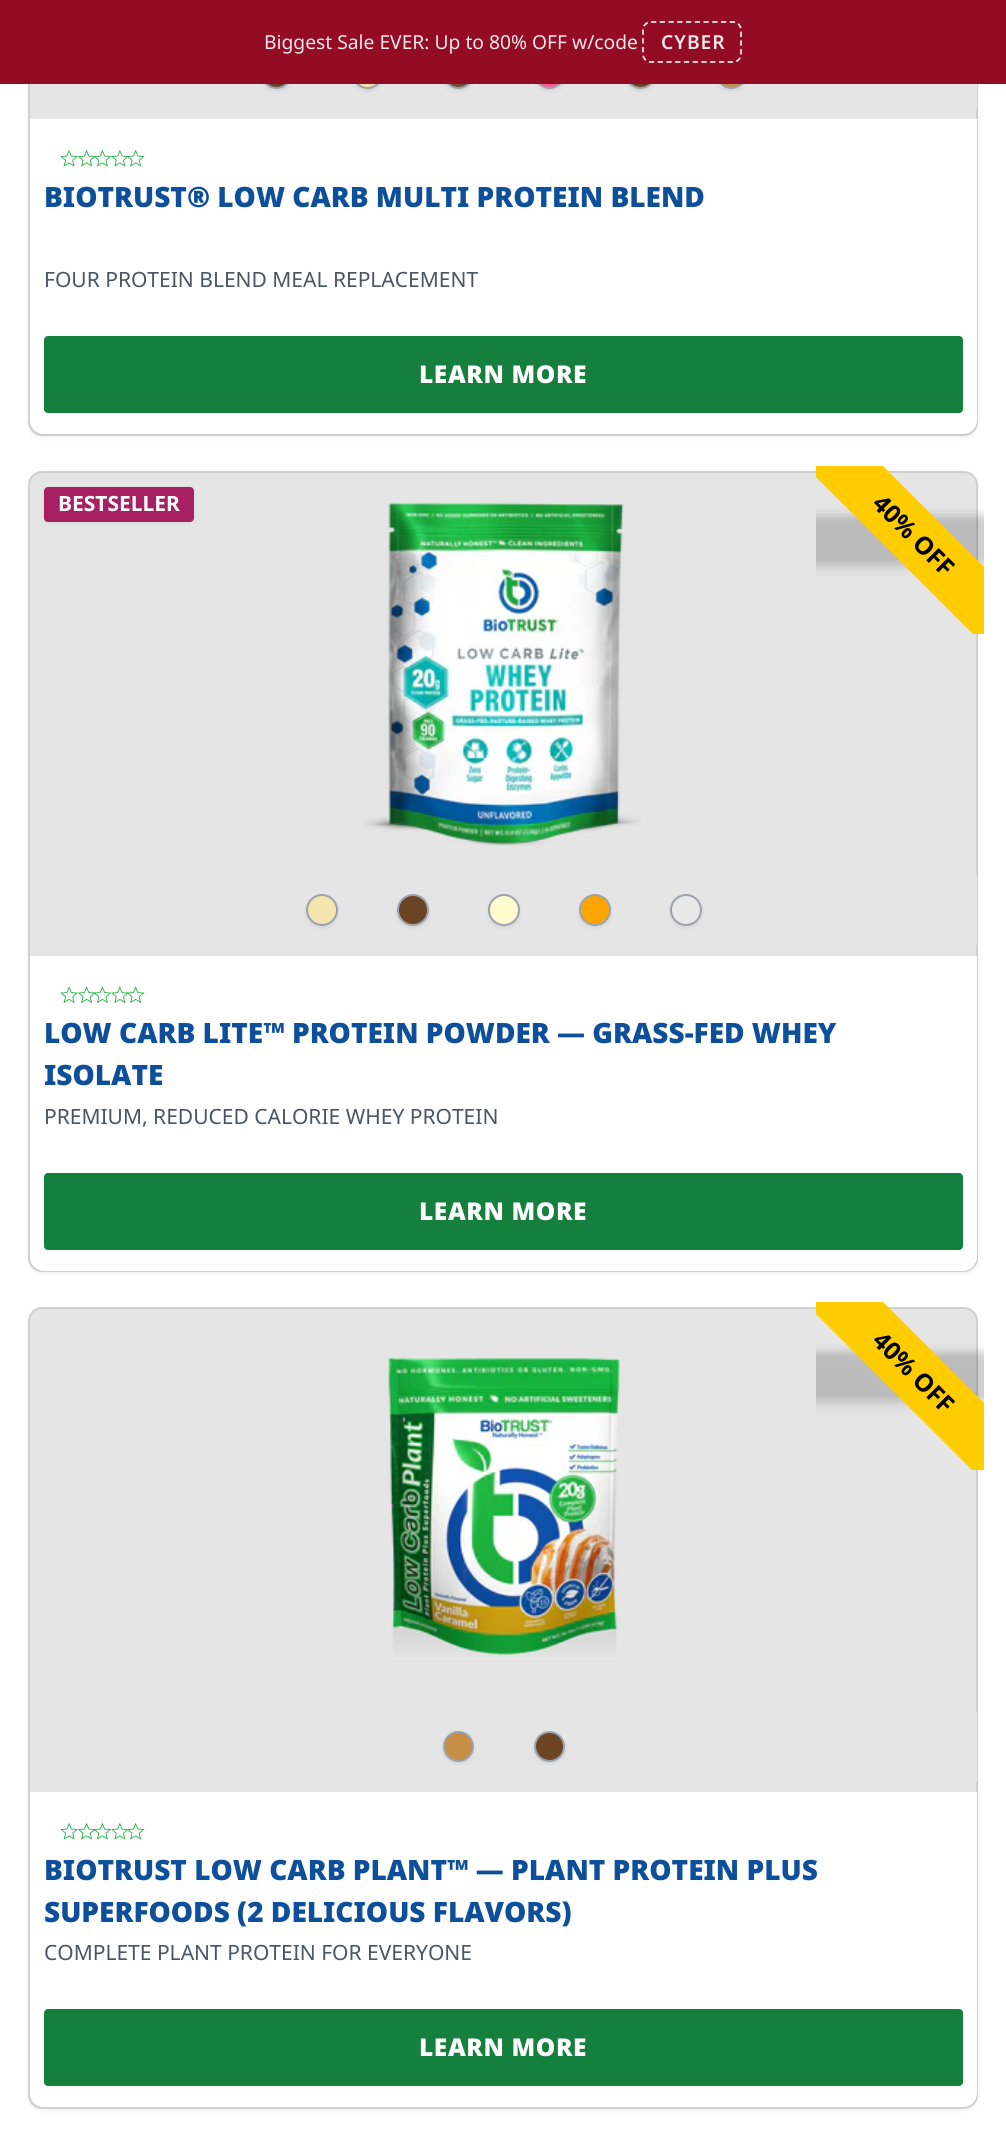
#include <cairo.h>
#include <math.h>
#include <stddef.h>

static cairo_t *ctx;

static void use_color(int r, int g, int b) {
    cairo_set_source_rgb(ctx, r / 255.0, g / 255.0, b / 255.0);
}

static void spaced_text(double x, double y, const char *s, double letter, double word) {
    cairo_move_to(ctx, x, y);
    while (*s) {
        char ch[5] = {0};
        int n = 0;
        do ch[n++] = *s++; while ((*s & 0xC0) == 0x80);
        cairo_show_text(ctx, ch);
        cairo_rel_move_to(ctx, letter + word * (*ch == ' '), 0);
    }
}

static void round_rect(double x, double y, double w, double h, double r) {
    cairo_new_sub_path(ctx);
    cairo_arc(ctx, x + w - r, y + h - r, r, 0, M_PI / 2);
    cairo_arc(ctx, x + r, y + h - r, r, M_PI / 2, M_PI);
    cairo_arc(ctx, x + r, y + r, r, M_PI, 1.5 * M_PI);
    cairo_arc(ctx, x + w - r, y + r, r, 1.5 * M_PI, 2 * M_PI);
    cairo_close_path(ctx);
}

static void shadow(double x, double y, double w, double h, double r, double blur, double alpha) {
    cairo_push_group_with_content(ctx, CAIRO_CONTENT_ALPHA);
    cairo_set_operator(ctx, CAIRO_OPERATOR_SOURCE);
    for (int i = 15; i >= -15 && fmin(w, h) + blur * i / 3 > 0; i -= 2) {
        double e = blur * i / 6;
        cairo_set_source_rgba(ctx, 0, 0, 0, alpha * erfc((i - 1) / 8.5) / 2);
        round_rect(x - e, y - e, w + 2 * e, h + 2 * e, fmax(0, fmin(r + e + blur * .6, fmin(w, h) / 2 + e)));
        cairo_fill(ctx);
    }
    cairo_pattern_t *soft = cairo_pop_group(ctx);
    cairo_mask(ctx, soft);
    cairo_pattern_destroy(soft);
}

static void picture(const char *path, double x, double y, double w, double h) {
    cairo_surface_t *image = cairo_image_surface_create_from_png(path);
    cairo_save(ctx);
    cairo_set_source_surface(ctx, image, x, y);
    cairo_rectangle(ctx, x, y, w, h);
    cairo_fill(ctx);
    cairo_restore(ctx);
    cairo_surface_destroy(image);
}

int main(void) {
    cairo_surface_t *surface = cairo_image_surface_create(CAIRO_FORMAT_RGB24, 1006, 2138);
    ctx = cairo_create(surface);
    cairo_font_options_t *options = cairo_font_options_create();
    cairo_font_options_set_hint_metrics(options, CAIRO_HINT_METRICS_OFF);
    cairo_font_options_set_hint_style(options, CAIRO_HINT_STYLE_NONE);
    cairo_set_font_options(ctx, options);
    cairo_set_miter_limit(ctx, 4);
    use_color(255, 255, 255);
    cairo_paint(ctx);
    use_color(0, 0, 0);
    shadow(28, -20, 950, 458, 14, 2, 0.05);
    use_color(229, 229, 229);
    round_rect(29, -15, 948, 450, 13);
    cairo_fill_preserve(ctx);
    use_color(208, 208, 208);
    cairo_stroke(ctx);
    use_color(0, 0, 0);
    shadow(261, 60, 31, 31, 15.5, 2, 0.08);
    use_color(107, 68, 35);
    cairo_arc(ctx, 276.5, 73.5, 14.5, 0, 2 * M_PI);
    cairo_fill_preserve(ctx);
    use_color(156, 163, 175);
    cairo_stroke(ctx);
    use_color(0, 0, 0);
    shadow(352, 60, 31, 31, 15.5, 2, 0.08);
    use_color(243, 229, 171);
    cairo_arc(ctx, 367.5, 73.5, 14.5, 0, 2 * M_PI);
    cairo_fill_preserve(ctx);
    use_color(156, 163, 175);
    cairo_stroke(ctx);
    use_color(0, 0, 0);
    shadow(443, 60, 31, 31, 15.5, 2, 0.08);
    use_color(111, 78, 55);
    cairo_arc(ctx, 458.5, 73.5, 14.5, 0, 2 * M_PI);
    cairo_fill_preserve(ctx);
    use_color(156, 163, 175);
    cairo_stroke(ctx);
    use_color(0, 0, 0);
    shadow(534, 60, 31, 31, 15.5, 2, 0.08);
    use_color(252, 90, 141);
    cairo_arc(ctx, 549.5, 73.5, 14.5, 0, 2 * M_PI);
    cairo_fill_preserve(ctx);
    use_color(156, 163, 175);
    cairo_stroke(ctx);
    use_color(0, 0, 0);
    shadow(625, 60, 31, 31, 15.5, 2, 0.08);
    use_color(107, 68, 35);
    cairo_arc(ctx, 640.5, 73.5, 14.5, 0, 2 * M_PI);
    cairo_fill_preserve(ctx);
    use_color(156, 163, 175);
    cairo_stroke(ctx);
    use_color(0, 0, 0);
    shadow(716, 60, 31, 31, 15.5, 2, 0.08);
    use_color(198, 142, 71);
    cairo_arc(ctx, 731.5, 73.5, 14.5, 0, 2 * M_PI);
    cairo_fill_preserve(ctx);
    use_color(156, 163, 175);
    cairo_stroke(ctx);
    use_color(147, 12, 36);
    cairo_rectangle(ctx, 0, 0, 1006, 84);
    cairo_fill(ctx);
    cairo_select_font_face(ctx, "Noto Sans", CAIRO_FONT_SLANT_NORMAL, CAIRO_FONT_WEIGHT_NORMAL);
    cairo_set_font_size(ctx, 19.25);
    use_color(244, 231, 233);
    cairo_move_to(ctx, 264, 49);
    cairo_show_text(ctx, "Biggest Sale EVER: Up to 80% OFF w/code");
    cairo_new_path(ctx);
    cairo_move_to(ctx, 651, 22);
    cairo_line_to(ctx, 733, 22);
    cairo_curve_to(ctx, 737.5, 22, 741, 25.5, 741, 30);
    cairo_line_to(ctx, 741, 54);
    cairo_curve_to(ctx, 741, 58.5, 737.5, 62, 733, 62);
    cairo_line_to(ctx, 651, 62);
    cairo_curve_to(ctx, 646.5, 62, 643, 58.5, 643, 54);
    cairo_line_to(ctx, 643, 30);
    cairo_curve_to(ctx, 643, 25.5, 646.5, 22, 651, 22);
    cairo_close_path(ctx);
    cairo_set_line_width(ctx, 1.8);
    cairo_set_dash(ctx, (double[]){5.25, 3.5}, 2, 0);
    cairo_stroke(ctx);
    cairo_select_font_face(ctx, "Noto Sans SemiBold", CAIRO_FONT_SLANT_NORMAL, CAIRO_FONT_WEIGHT_NORMAL);
    spaced_text(661, 49, "CYBER", 1, 0);
    use_color(229, 229, 229);
    cairo_rectangle(ctx, 976, 84, 1, 25);
    cairo_fill(ctx);
    use_color(255, 255, 255);
    cairo_new_path(ctx);
    cairo_move_to(ctx, 30, 119);
    cairo_line_to(ctx, 977, 119);
    cairo_line_to(ctx, 977, 420);
    cairo_curve_to(ctx, 977, 427.5, 970.5, 434, 963, 434);
    cairo_line_to(ctx, 44, 434);
    cairo_curve_to(ctx, 36.5, 434, 30, 427.5, 30, 420);
    cairo_close_path(ctx);
    cairo_fill(ctx);
    picture("img1.png", 60, 149, 18, 18);
    picture("img2.png", 77, 149, 19, 18);
    picture("img3.png", 94, 149, 18, 18);
    picture("img4.png", 111, 149, 18, 18);
    picture("img5.png", 127, 149, 18, 18);
    cairo_select_font_face(ctx, "Noto Sans Black", CAIRO_FONT_SLANT_NORMAL, CAIRO_FONT_WEIGHT_NORMAL);
    cairo_set_font_size(ctx, 28);
    use_color(13, 79, 154);
    cairo_move_to(ctx, 44, 207);
    cairo_show_text(ctx, "BIOTRUST® LOW CARB MULTI PROTEIN BLEND");
    cairo_select_font_face(ctx, "Noto Sans", CAIRO_FONT_SLANT_NORMAL, CAIRO_FONT_WEIGHT_NORMAL);
    cairo_set_font_size(ctx, 21);
    use_color(75, 85, 99);
    cairo_move_to(ctx, 44, 287);
    cairo_show_text(ctx, "FOUR PROTEIN BLEND MEAL REPLACEMENT");
    use_color(21, 128, 61);
    round_rect(44, 336, 919, 77, 4);
    cairo_fill(ctx);
    cairo_select_font_face(ctx, "Noto Sans Black", CAIRO_FONT_SLANT_NORMAL, CAIRO_FONT_WEIGHT_NORMAL);
    cairo_set_font_size(ctx, 24.5);
    use_color(255, 255, 255);
    spaced_text(419, 383, "LEARN MORE", 0.6, 0);
    use_color(0, 0, 0);
    shadow(28, 473, 950, 801, 14, 2, 0.05);
    use_color(229, 229, 229);
    round_rect(29, 472, 948, 799, 13);
    cairo_fill_preserve(ctx);
    use_color(208, 208, 208);
    cairo_set_line_width(ctx, 2);
    cairo_set_dash(ctx, NULL, 0, 0);
    cairo_stroke(ctx);
    use_color(0, 0, 0);
    shadow(44, 488, 150, 35, 4, 2, 0.05);
    use_color(167, 32, 98);
    round_rect(44, 487, 150, 35, 4);
    cairo_fill(ctx);
    cairo_select_font_face(ctx, "Noto Sans", CAIRO_FONT_SLANT_NORMAL, CAIRO_FONT_WEIGHT_BOLD);
    cairo_set_font_size(ctx, 21);
    use_color(255, 255, 255);
    cairo_move_to(ctx, 58, 511);
    cairo_show_text(ctx, "BESTSELLER");
    picture("img6.png", 363, 502, 278, 344);
    cairo_save(ctx);
    cairo_rectangle(ctx, 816, 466, 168, 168);
    cairo_clip(ctx);
    use_color(0, 0, 0);
    shadow(777, 515, 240, 49, 0, 3.5, 0.1);
    shadow(775, 516, 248, 53, 0, 5.5, 0.1);
    cairo_restore(ctx);
    cairo_save(ctx);
    cairo_rectangle(ctx, 816, 466, 168, 168);
    cairo_clip(ctx);
    use_color(255, 204, 0);
    cairo_new_path(ctx);
    cairo_move_to(ctx, 834, 417);
    cairo_line_to(ctx, 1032, 615);
    cairo_line_to(ctx, 993, 654);
    cairo_line_to(ctx, 795, 456);
    cairo_close_path(ctx);
    cairo_fill(ctx);
    cairo_restore(ctx);
    cairo_set_font_size(ctx, 24.5);
    use_color(0, 0, 0);
    cairo_save(ctx);
    cairo_translate(ctx, 871, 505);
    cairo_rotate(ctx, 45 * M_PI / 180);
    cairo_move_to(ctx, 0, 0);
    cairo_show_text(ctx, "40% OFF");
    cairo_restore(ctx);
    use_color(229, 229, 229);
    cairo_rectangle(ctx, 976, 875, 1, 70);
    cairo_fill(ctx);
    use_color(0, 0, 0);
    shadow(306, 896, 32, 32, 16, 2, 0.08);
    use_color(243, 229, 171);
    cairo_arc(ctx, 322, 910, 15, 0, 2 * M_PI);
    cairo_fill_preserve(ctx);
    use_color(156, 163, 175);
    cairo_stroke(ctx);
    use_color(0, 0, 0);
    shadow(397, 896, 32, 32, 16, 2, 0.08);
    use_color(107, 68, 35);
    cairo_arc(ctx, 413, 910, 15, 0, 2 * M_PI);
    cairo_fill_preserve(ctx);
    use_color(156, 163, 175);
    cairo_stroke(ctx);
    use_color(0, 0, 0);
    shadow(488, 896, 32, 32, 16, 2, 0.08);
    use_color(255, 253, 208);
    cairo_arc(ctx, 504, 910, 15, 0, 2 * M_PI);
    cairo_fill_preserve(ctx);
    use_color(156, 163, 175);
    cairo_stroke(ctx);
    use_color(0, 0, 0);
    shadow(579, 896, 32, 32, 16, 2, 0.08);
    use_color(255, 165, 0);
    cairo_arc(ctx, 595, 910, 15, 0, 2 * M_PI);
    cairo_fill_preserve(ctx);
    use_color(156, 163, 175);
    cairo_stroke(ctx);
    use_color(0, 0, 0);
    shadow(670, 896, 32, 32, 16, 2, 0.08);
    use_color(232, 232, 232);
    cairo_arc(ctx, 686, 910, 15, 0, 2 * M_PI);
    cairo_fill_preserve(ctx);
    use_color(156, 163, 175);
    cairo_stroke(ctx);
    use_color(255, 255, 255);
    cairo_new_path(ctx);
    cairo_move_to(ctx, 30, 956);
    cairo_line_to(ctx, 977, 956);
    cairo_line_to(ctx, 977, 1257);
    cairo_curve_to(ctx, 977, 1264.5, 970.5, 1271, 963, 1271);
    cairo_line_to(ctx, 44, 1271);
    cairo_curve_to(ctx, 36.5, 1271, 30, 1264.5, 30, 1257);
    cairo_close_path(ctx);
    cairo_fill(ctx);
    picture("img7.png", 60, 986, 18, 18);
    picture("img8.png", 77, 986, 19, 18);
    picture("img9.png", 93, 986, 19, 18);
    picture("img10.png", 111, 986, 18, 18);
    picture("img11.png", 126, 986, 19, 18);
    cairo_select_font_face(ctx, "Noto Sans Black", CAIRO_FONT_SLANT_NORMAL, CAIRO_FONT_WEIGHT_NORMAL);
    cairo_set_font_size(ctx, 28);
    use_color(13, 79, 154);
    cairo_move_to(ctx, 44, 1043);
    cairo_show_text(ctx, "LOW CARB LITE™ PROTEIN POWDER — GRASS-FED WHEY");
    cairo_move_to(ctx, 44, 1085);
    cairo_show_text(ctx, "ISOLATE");
    cairo_select_font_face(ctx, "Noto Sans", CAIRO_FONT_SLANT_NORMAL, CAIRO_FONT_WEIGHT_NORMAL);
    cairo_set_font_size(ctx, 21);
    use_color(75, 85, 99);
    cairo_move_to(ctx, 44, 1124);
    cairo_show_text(ctx, "PREMIUM, REDUCED CALORIE WHEY PROTEIN");
    use_color(21, 128, 61);
    round_rect(44, 1173, 919, 77, 4);
    cairo_fill(ctx);
    cairo_select_font_face(ctx, "Noto Sans Black", CAIRO_FONT_SLANT_NORMAL, CAIRO_FONT_WEIGHT_NORMAL);
    cairo_set_font_size(ctx, 24.5);
    use_color(255, 255, 255);
    spaced_text(419, 1220, "LEARN MORE", 0.6, 0);
    use_color(0, 0, 0);
    shadow(28, 1309, 950, 802, 14, 2, 0.05);
    use_color(229, 229, 229);
    round_rect(29, 1308, 948, 800, 13);
    cairo_fill_preserve(ctx);
    use_color(208, 208, 208);
    cairo_stroke(ctx);
    picture("img12.png", 388, 1358, 232, 299);
    cairo_save(ctx);
    cairo_rectangle(ctx, 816, 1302, 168, 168);
    cairo_clip(ctx);
    use_color(0, 0, 0);
    shadow(777, 1351, 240, 49, 0, 3.5, 0.1);
    shadow(775, 1353, 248, 52, 0, 5.5, 0.1);
    cairo_restore(ctx);
    cairo_save(ctx);
    cairo_rectangle(ctx, 816, 1302, 168, 168);
    cairo_clip(ctx);
    use_color(255, 204, 0);
    cairo_new_path(ctx);
    cairo_move_to(ctx, 834, 1253);
    cairo_line_to(ctx, 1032, 1451);
    cairo_line_to(ctx, 993, 1491);
    cairo_line_to(ctx, 795, 1293);
    cairo_close_path(ctx);
    cairo_fill(ctx);
    cairo_restore(ctx);
    cairo_select_font_face(ctx, "Noto Sans", CAIRO_FONT_SLANT_NORMAL, CAIRO_FONT_WEIGHT_BOLD);
    use_color(0, 0, 0);
    cairo_save(ctx);
    cairo_translate(ctx, 871, 1342);
    cairo_rotate(ctx, 45 * M_PI / 180);
    cairo_move_to(ctx, 0, 0);
    cairo_show_text(ctx, "40% OFF");
    cairo_restore(ctx);
    use_color(229, 229, 229);
    cairo_rectangle(ctx, 976, 1712, 1, 70);
    cairo_fill(ctx);
    use_color(0, 0, 0);
    shadow(443, 1733, 31, 31, 15.5, 2, 0.08);
    use_color(198, 142, 71);
    cairo_arc(ctx, 458.5, 1746.5, 14.5, 0, 2 * M_PI);
    cairo_fill_preserve(ctx);
    use_color(156, 163, 175);
    cairo_stroke(ctx);
    use_color(0, 0, 0);
    shadow(534, 1733, 31, 31, 15.5, 2, 0.08);
    use_color(107, 68, 35);
    cairo_arc(ctx, 549.5, 1746.5, 14.5, 0, 2 * M_PI);
    cairo_fill_preserve(ctx);
    use_color(156, 163, 175);
    cairo_stroke(ctx);
    use_color(255, 255, 255);
    cairo_new_path(ctx);
    cairo_move_to(ctx, 30, 1792);
    cairo_line_to(ctx, 977, 1792);
    cairo_line_to(ctx, 977, 2093);
    cairo_curve_to(ctx, 977, 2100.5, 970.5, 2107, 963, 2107);
    cairo_line_to(ctx, 44, 2107);
    cairo_curve_to(ctx, 36.5, 2107, 30, 2100.5, 30, 2093);
    cairo_close_path(ctx);
    cairo_fill(ctx);
    picture("img1.png", 60, 1822, 18, 18);
    picture("img2.png", 77, 1822, 19, 18);
    picture("img3.png", 94, 1822, 18, 18);
    picture("img4.png", 111, 1822, 18, 18);
    picture("img5.png", 127, 1822, 18, 18);
    cairo_select_font_face(ctx, "Noto Sans Black", CAIRO_FONT_SLANT_NORMAL, CAIRO_FONT_WEIGHT_NORMAL);
    cairo_set_font_size(ctx, 28);
    use_color(13, 79, 154);
    cairo_move_to(ctx, 44, 1880);
    cairo_show_text(ctx, "BIOTRUST LOW CARB PLANT™ — PLANT PROTEIN PLUS");
    cairo_move_to(ctx, 44, 1922);
    cairo_show_text(ctx, "SUPERFOODS (2 DELICIOUS FLAVORS)");
    cairo_select_font_face(ctx, "Noto Sans", CAIRO_FONT_SLANT_NORMAL, CAIRO_FONT_WEIGHT_NORMAL);
    cairo_set_font_size(ctx, 21);
    use_color(75, 85, 99);
    cairo_move_to(ctx, 44, 1960);
    cairo_show_text(ctx, "COMPLETE PLANT PROTEIN FOR EVERYONE");
    use_color(21, 128, 61);
    round_rect(44, 2009, 919, 77, 4);
    cairo_fill(ctx);
    cairo_select_font_face(ctx, "Noto Sans Black", CAIRO_FONT_SLANT_NORMAL, CAIRO_FONT_WEIGHT_NORMAL);
    cairo_set_font_size(ctx, 24.5);
    use_color(255, 255, 255);
    spaced_text(419, 2056, "LEARN MORE", 0.6, 0);
    cairo_surface_write_to_png(surface, "result.png");
    cairo_font_options_destroy(options);
    cairo_destroy(ctx);
    cairo_surface_destroy(surface);
    return 0;
}
